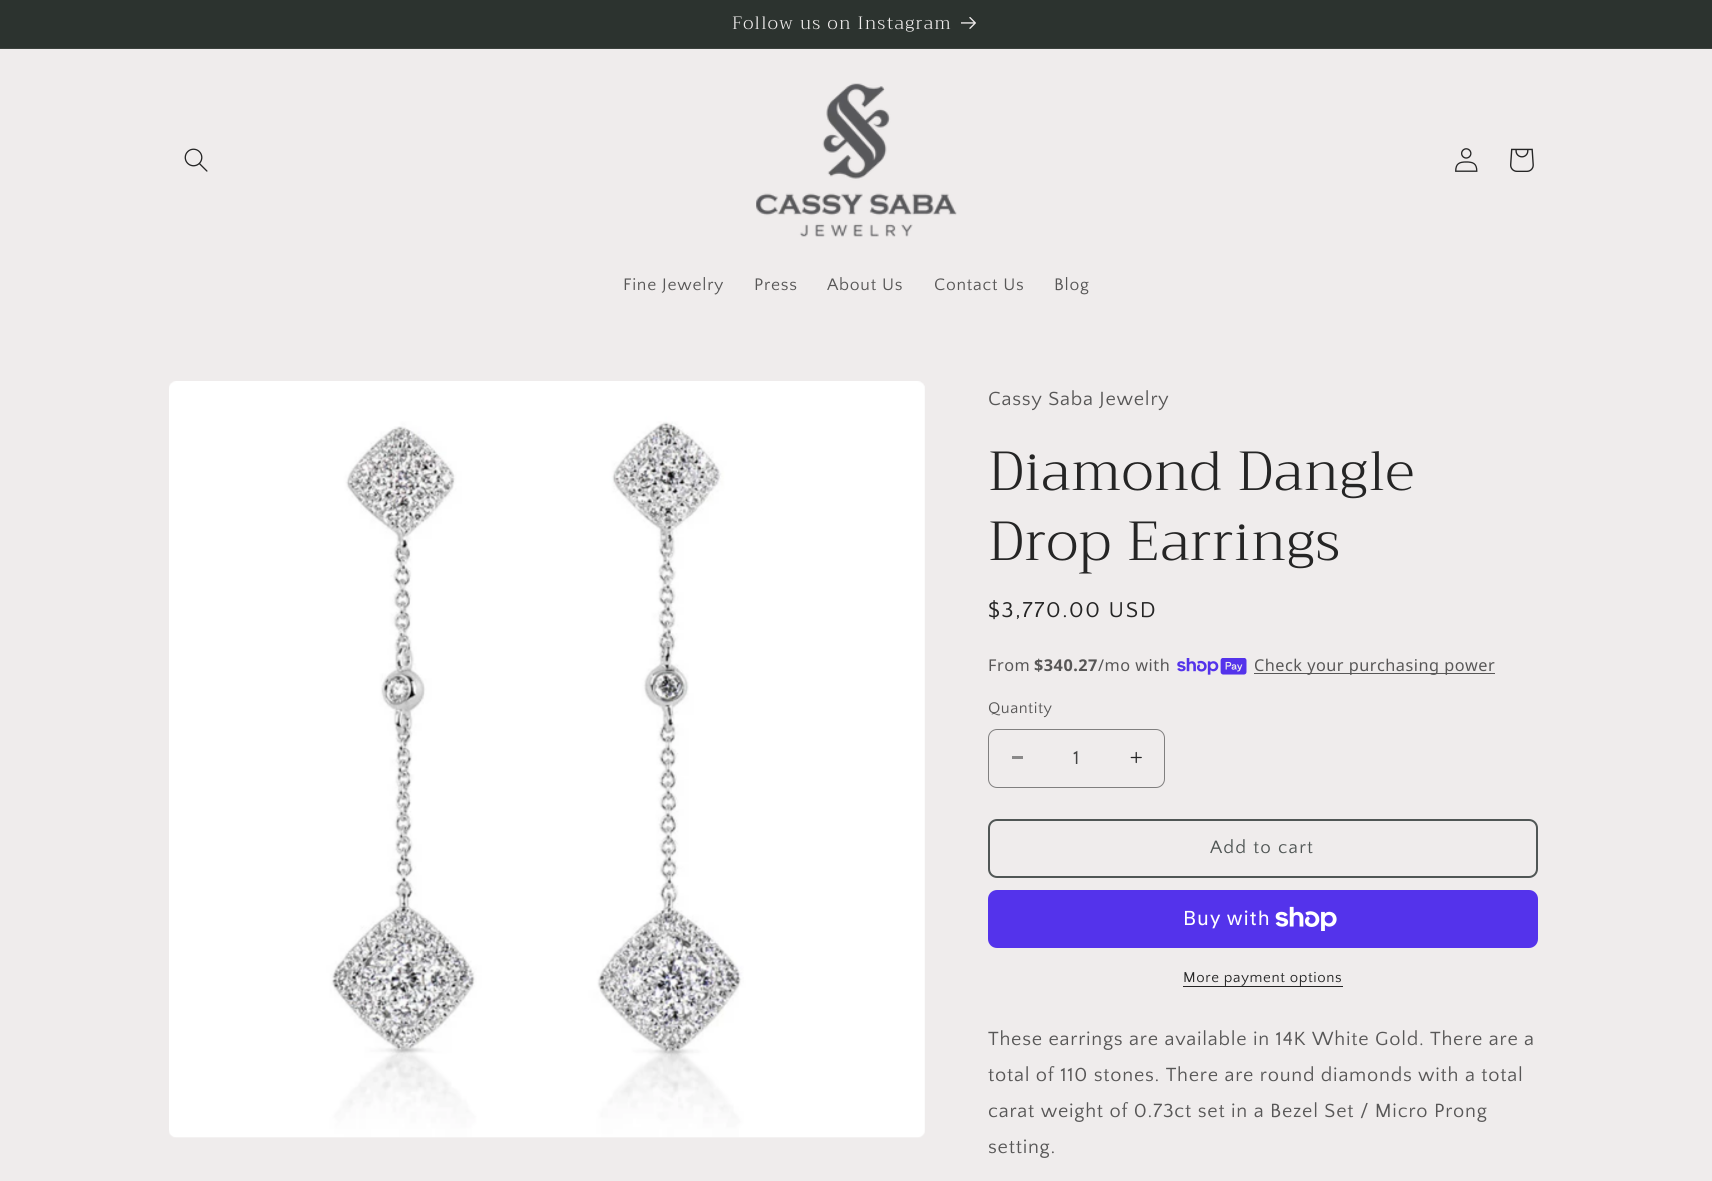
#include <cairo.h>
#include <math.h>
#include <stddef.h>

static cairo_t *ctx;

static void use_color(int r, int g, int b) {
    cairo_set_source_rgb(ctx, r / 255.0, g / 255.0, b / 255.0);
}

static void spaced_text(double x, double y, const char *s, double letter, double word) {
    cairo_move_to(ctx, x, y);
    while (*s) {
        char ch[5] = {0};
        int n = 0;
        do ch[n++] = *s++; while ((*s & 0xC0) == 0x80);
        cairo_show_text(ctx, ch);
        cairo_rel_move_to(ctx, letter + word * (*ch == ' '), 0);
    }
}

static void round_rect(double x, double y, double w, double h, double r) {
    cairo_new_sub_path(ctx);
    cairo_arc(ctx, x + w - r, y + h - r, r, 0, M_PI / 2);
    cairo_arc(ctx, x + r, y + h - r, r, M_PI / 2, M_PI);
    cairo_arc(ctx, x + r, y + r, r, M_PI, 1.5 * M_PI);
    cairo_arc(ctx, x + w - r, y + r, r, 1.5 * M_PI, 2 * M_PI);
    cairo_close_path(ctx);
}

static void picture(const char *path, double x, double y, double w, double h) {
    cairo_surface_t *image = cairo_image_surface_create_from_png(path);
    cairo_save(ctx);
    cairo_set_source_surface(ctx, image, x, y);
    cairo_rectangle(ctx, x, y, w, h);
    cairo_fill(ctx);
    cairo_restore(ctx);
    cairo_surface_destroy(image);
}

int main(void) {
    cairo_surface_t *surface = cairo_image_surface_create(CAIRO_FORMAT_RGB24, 1712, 1181);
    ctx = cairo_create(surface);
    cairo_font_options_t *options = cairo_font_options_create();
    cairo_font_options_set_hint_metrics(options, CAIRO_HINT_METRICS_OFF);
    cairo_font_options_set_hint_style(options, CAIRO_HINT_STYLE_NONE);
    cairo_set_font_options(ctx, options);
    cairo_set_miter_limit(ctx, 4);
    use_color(239, 236, 236);
    cairo_paint(ctx);
    use_color(44, 51, 47);
    cairo_rectangle(ctx, 0, 0, 1712, 48);
    cairo_fill(ctx);
    use_color(60, 66, 62);
    cairo_rectangle(ctx, 0, 48, 1712, 1);
    cairo_fill(ctx);
    cairo_select_font_face(ctx, "Trirong Light", CAIRO_FONT_SLANT_NORMAL, CAIRO_FONT_WEIGHT_NORMAL);
    cairo_set_font_size(ctx, 17.9);
    use_color(239, 236, 236);
    spaced_text(732, 29, "Follow us on Instagram", 1.25, 0);
    picture("img1.png", 961, 17, 15, 12);
    picture("img2.png", 184, 148, 24, 24);
    picture("img3.png", 756, 83, 201, 154);
    picture("img4.png", 1455, 148, 23, 24);
    picture("img5.png", 1510, 148, 24, 24);
    cairo_select_font_face(ctx, "Quattrocento Sans", CAIRO_FONT_SLANT_NORMAL, CAIRO_FONT_WEIGHT_NORMAL);
    cairo_set_font_size(ctx, 17.5);
    use_color(88, 87, 87);
    spaced_text(623, 290, "Fine Jewelry", 0.75, 0);
    spaced_text(754, 290, "Press", 0.75, 0);
    spaced_text(827, 290, "About Us", 0.75, 0);
    spaced_text(934, 290, "Contact Us", 0.75, 0);
    spaced_text(1054, 290, "Blog", 0.75, 0);
    picture("img6.png", 169, 381, 756, 757);
    cairo_set_font_size(ctx, 20);
    spaced_text(988, 405, "Cassy Saba Jewelry", 0.75, 0);
    cairo_select_font_face(ctx, "Trirong Light", CAIRO_FONT_SLANT_NORMAL, CAIRO_FONT_WEIGHT_NORMAL);
    cairo_set_font_size(ctx, 55);
    use_color(37, 37, 37);
    spaced_text(988, 490, "Diamond Dangle", 0.8, 0);
    spaced_text(988, 560, "Drop Earrings", 0.8, 0);
    cairo_select_font_face(ctx, "Quattrocento Sans", CAIRO_FONT_SLANT_NORMAL, CAIRO_FONT_WEIGHT_NORMAL);
    cairo_set_font_size(ctx, 22.5);
    spaced_text(988, 617, "$3,770.00 USD", 1.6, 0);
    cairo_select_font_face(ctx, "Noto Sans", CAIRO_FONT_SLANT_NORMAL, CAIRO_FONT_WEIGHT_NORMAL);
    cairo_set_font_size(ctx, 16.25);
    use_color(88, 87, 87);
    spaced_text(988, 671, "From", 0.5, 0);
    cairo_select_font_face(ctx, "Noto Sans", CAIRO_FONT_SLANT_NORMAL, CAIRO_FONT_WEIGHT_BOLD);
    spaced_text(1034, 671, "$340.27", 0.5, 0);
    cairo_select_font_face(ctx, "Noto Sans", CAIRO_FONT_SLANT_NORMAL, CAIRO_FONT_WEIGHT_NORMAL);
    spaced_text(1098, 671, "/mo with", 0.5, 0);
    picture("img7.png", 1177, 658, 70, 17);
    cairo_rectangle(ctx, 1254, 673, 241, 1);
    cairo_fill(ctx);
    spaced_text(1254, 671, "Check your purchasing power", 0.5, 0);
    cairo_select_font_face(ctx, "Quattrocento Sans", CAIRO_FONT_SLANT_NORMAL, CAIRO_FONT_WEIGHT_NORMAL);
    spaced_text(988, 713, "Quantity", 0.5, 0);
    use_color(138, 137, 137);
    cairo_rectangle(ctx, 1012, 756, 11, 3);
    cairo_fill(ctx);
    picture("img8.png", 1130, 751, 12, 13);
    round_rect(988.5, 729.5, 176, 58, 8.5);
    use_color(128, 127, 127);
    cairo_set_line_width(ctx, 1);
    cairo_stroke(ctx);
    cairo_set_font_size(ctx, 20);
    use_color(67, 67, 67);
    cairo_move_to(ctx, 1073, 764);
    cairo_show_text(ctx, "1");
    round_rect(989, 820, 548, 57, 8);
    use_color(80, 86, 85);
    cairo_set_line_width(ctx, 2);
    cairo_stroke(ctx);
    cairo_set_font_size(ctx, 18.75);
    spaced_text(1210, 853, "Add to cart", 1.25, 0);
    use_color(84, 51, 235);
    round_rect(988, 890, 550, 58, 9);
    cairo_fill(ctx);
    cairo_select_font_face(ctx, "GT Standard", CAIRO_FONT_SLANT_NORMAL, CAIRO_FONT_WEIGHT_NORMAL);
    cairo_set_font_size(ctx, 20);
    use_color(255, 255, 255);
    spaced_text(1183, 925, "Buy with", 0.75, 0);
    picture("img9.png", 1275, 906, 62, 25);
    cairo_select_font_face(ctx, "Quattrocento Sans", CAIRO_FONT_SLANT_NORMAL, CAIRO_FONT_WEIGHT_NORMAL);
    cairo_set_font_size(ctx, 15);
    use_color(37, 37, 37);
    spaced_text(1183, 982, "More payment options", 0.6, 0);
    cairo_rectangle(ctx, 1183, 986, 160, 1);
    cairo_fill(ctx);
    cairo_set_font_size(ctx, 20);
    use_color(88, 87, 87);
    spaced_text(988, 1045, "These earrings are available in 14K White Gold. There are a", 0.75, 0);
    spaced_text(988, 1081, "total of 110 stones. There are round diamonds with a total", 0.75, 0);
    spaced_text(988, 1117, "carat weight of 0.73ct set in a Bezel Set / Micro Prong", 0.75, 0);
    spaced_text(988, 1153, "setting.", 0.75, 0);
    cairo_surface_write_to_png(surface, "result.png");
    cairo_font_options_destroy(options);
    cairo_destroy(ctx);
    cairo_surface_destroy(surface);
    return 0;
}
